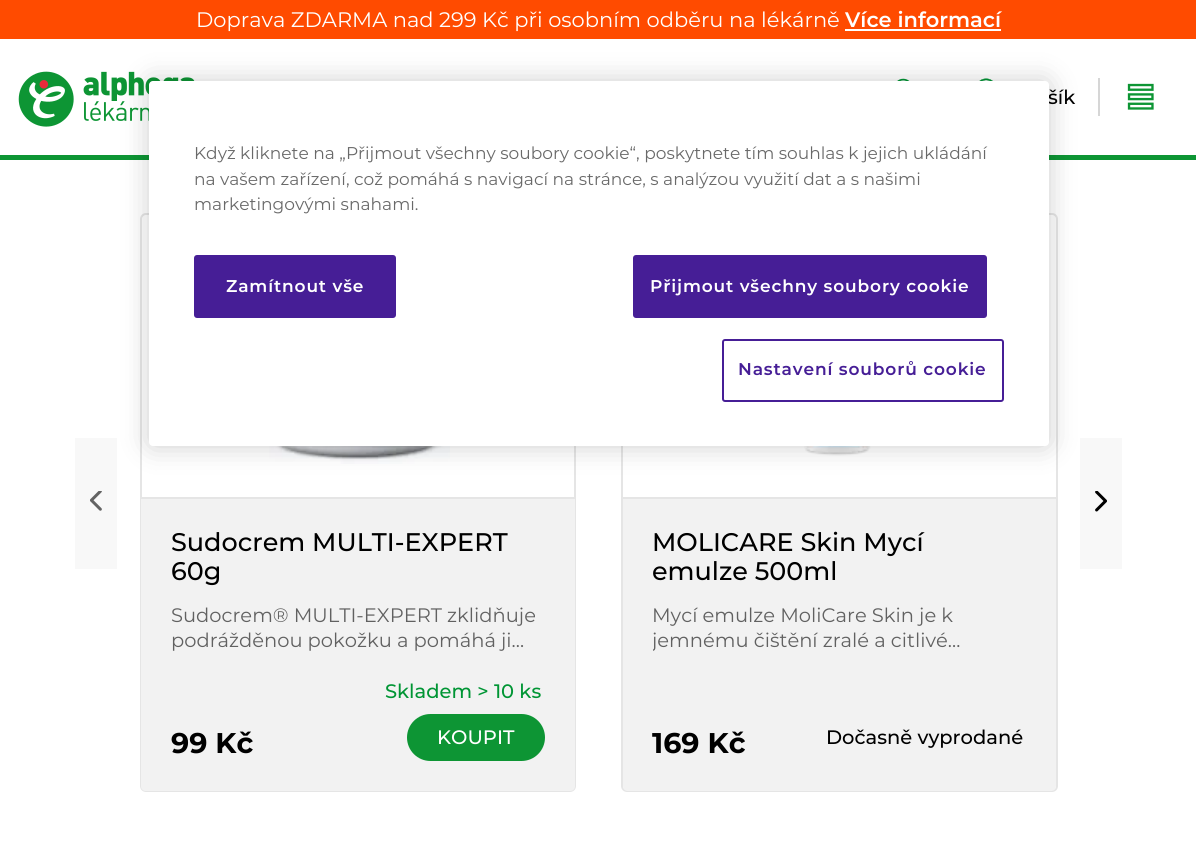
#include <cairo.h>
#include <math.h>
#include <stddef.h>

static cairo_t *ctx;

static void use_color(int r, int g, int b) {
    cairo_set_source_rgb(ctx, r / 255.0, g / 255.0, b / 255.0);
}

static void spaced_text(double x, double y, const char *s, double letter, double word) {
    cairo_move_to(ctx, x, y);
    while (*s) {
        char ch[5] = {0};
        int n = 0;
        do ch[n++] = *s++; while ((*s & 0xC0) == 0x80);
        cairo_show_text(ctx, ch);
        cairo_rel_move_to(ctx, letter + word * (*ch == ' '), 0);
    }
}

static void round_rect(double x, double y, double w, double h, double r) {
    cairo_new_sub_path(ctx);
    cairo_arc(ctx, x + w - r, y + h - r, r, 0, M_PI / 2);
    cairo_arc(ctx, x + r, y + h - r, r, M_PI / 2, M_PI);
    cairo_arc(ctx, x + r, y + r, r, M_PI, 1.5 * M_PI);
    cairo_arc(ctx, x + w - r, y + r, r, 1.5 * M_PI, 2 * M_PI);
    cairo_close_path(ctx);
}

static void shadow(double x, double y, double w, double h, double r, double blur, double alpha) {
    cairo_push_group_with_content(ctx, CAIRO_CONTENT_ALPHA);
    cairo_set_operator(ctx, CAIRO_OPERATOR_SOURCE);
    for (int i = 15; i >= -15 && fmin(w, h) + blur * i / 3 > 0; i -= 2) {
        double e = blur * i / 6;
        cairo_set_source_rgba(ctx, 0, 0, 0, alpha * erfc((i - 1) / 8.5) / 2);
        round_rect(x - e, y - e, w + 2 * e, h + 2 * e, fmax(0, fmin(r + e + blur * .6, fmin(w, h) / 2 + e)));
        cairo_fill(ctx);
    }
    cairo_pattern_t *soft = cairo_pop_group(ctx);
    cairo_mask(ctx, soft);
    cairo_pattern_destroy(soft);
}

static void picture(const char *path, double x, double y, double w, double h) {
    cairo_surface_t *image = cairo_image_surface_create_from_png(path);
    cairo_save(ctx);
    cairo_set_source_surface(ctx, image, x, y);
    cairo_rectangle(ctx, x, y, w, h);
    cairo_fill(ctx);
    cairo_restore(ctx);
    cairo_surface_destroy(image);
}

int main(void) {
    cairo_surface_t *surface = cairo_image_surface_create(CAIRO_FORMAT_RGB24, 1196, 858);
    ctx = cairo_create(surface);
    cairo_font_options_t *options = cairo_font_options_create();
    cairo_font_options_set_hint_metrics(options, CAIRO_HINT_METRICS_OFF);
    cairo_font_options_set_hint_style(options, CAIRO_HINT_STYLE_NONE);
    cairo_set_font_options(ctx, options);
    cairo_set_miter_limit(ctx, 4);
    use_color(255, 255, 255);
    cairo_paint(ctx);
    use_color(255, 75, 0);
    cairo_rectangle(ctx, 0, 0, 1196, 39);
    cairo_fill(ctx);
    cairo_select_font_face(ctx, "Montserrat", CAIRO_FONT_SLANT_NORMAL, CAIRO_FONT_WEIGHT_NORMAL);
    cairo_set_font_size(ctx, 21);
    use_color(255, 255, 255);
    cairo_move_to(ctx, 196, 27);
    cairo_show_text(ctx, "Doprava ZDARMA nad 299 Kč při osobním odběru na lékárně");
    cairo_select_font_face(ctx, "Montserrat SemiBold", CAIRO_FONT_SLANT_NORMAL, CAIRO_FONT_WEIGHT_NORMAL);
    cairo_move_to(ctx, 845, 27);
    cairo_show_text(ctx, "Více informací");
    cairo_rectangle(ctx, 845, 29, 156, 2);
    cairo_fill(ctx);
    use_color(13, 149, 52);
    cairo_rectangle(ctx, 0, 155, 1196, 5);
    cairo_fill(ctx);
    picture("img1.png", 18, 71, 177, 56);
    picture("img2.png", 897, 78, 13, 3);
    use_color(214, 214, 214);
    cairo_rectangle(ctx, 1098, 78, 2, 38);
    cairo_fill(ctx);
    picture("img3.png", 979, 78, 14, 3);
    cairo_select_font_face(ctx, "Montserrat Medium", CAIRO_FONT_SLANT_NORMAL, CAIRO_FONT_WEIGHT_NORMAL);
    cairo_set_font_size(ctx, 19.5);
    use_color(0, 0, 0);
    cairo_move_to(ctx, 1048, 104);
    cairo_show_text(ctx, "šík");
    picture("img4.png", 1127, 83, 27, 27);
    use_color(248, 248, 248);
    cairo_rectangle(ctx, 75, 438, 42, 131);
    cairo_fill(ctx);
    cairo_rectangle(ctx, 1080, 438, 42, 131);
    cairo_fill(ctx);
    round_rect(141, 214, 434, 577, 5);
    use_color(229, 229, 229);
    cairo_stroke(ctx);
    picture("img7.png", 269, 446, 181, 18);
    round_rect(622, 214, 435, 577, 5);
    cairo_stroke(ctx);
    picture("img8.png", 804, 446, 67, 10);
    use_color(0, 0, 0);
    shadow(149, 81, 900, 365, 4, 13.5, 0.2);
    use_color(255, 255, 255);
    round_rect(149, 81, 900, 365, 4);
    cairo_fill(ctx);
    cairo_select_font_face(ctx, "Montserrat", CAIRO_FONT_SLANT_NORMAL, CAIRO_FONT_WEIGHT_NORMAL);
    cairo_set_font_size(ctx, 17.05);
    use_color(105, 105, 105);
    cairo_move_to(ctx, 194, 159);
    cairo_show_text(ctx, "Když kliknete na „Přijmout všechny soubory cookie“, poskytnete tím souhlas k jejich ukládání");
    cairo_move_to(ctx, 194, 185);
    cairo_show_text(ctx, "na vašem zařízení, což pomáhá s navigací na stránce, s analýzou využití dat a s našimi");
    cairo_move_to(ctx, 194, 210);
    cairo_show_text(ctx, "marketingovými snahami.");
    use_color(70, 30, 150);
    round_rect(195, 256, 200, 61, 2);
    cairo_fill_preserve(ctx);
    cairo_stroke(ctx);
    cairo_select_font_face(ctx, "Montserrat SemiBold", CAIRO_FONT_SLANT_NORMAL, CAIRO_FONT_WEIGHT_NORMAL);
    use_color(255, 255, 255);
    spaced_text(226, 292, "Zamítnout vše", 0.85, 0);
    use_color(70, 30, 150);
    round_rect(634, 256, 352, 61, 2);
    cairo_fill_preserve(ctx);
    cairo_stroke(ctx);
    use_color(255, 255, 255);
    spaced_text(650, 292, "Přijmout všechny soubory cookie", 0.85, 0);
    round_rect(723, 340, 280, 61, 2);
    use_color(70, 30, 150);
    cairo_stroke(ctx);
    spaced_text(738, 375, "Nastavení souborů cookie", 0.85, 0);
    picture("img5.png", 90, 491, 12, 20);
    picture("img6.png", 1095, 491, 12, 21);
    use_color(242, 242, 242);
    cairo_new_path(ctx);
    cairo_move_to(ctx, 141, 497);
    cairo_line_to(ctx, 575, 497);
    cairo_line_to(ctx, 575, 786);
    cairo_curve_to(ctx, 575, 789, 573, 791, 570, 791);
    cairo_line_to(ctx, 146, 791);
    cairo_curve_to(ctx, 143, 791, 141, 789, 141, 786);
    cairo_close_path(ctx);
    cairo_fill(ctx);
    use_color(229, 229, 229);
    cairo_rectangle(ctx, 141, 497, 434, 2);
    cairo_fill(ctx);
    cairo_select_font_face(ctx, "Montserrat Medium", CAIRO_FONT_SLANT_NORMAL, CAIRO_FONT_WEIGHT_NORMAL);
    cairo_set_font_size(ctx, 25.5);
    use_color(0, 0, 0);
    cairo_move_to(ctx, 171, 551);
    cairo_show_text(ctx, "Sudocrem MULTI-EXPERT");
    cairo_move_to(ctx, 171, 580);
    cairo_show_text(ctx, "60g");
    cairo_select_font_face(ctx, "Montserrat", CAIRO_FONT_SLANT_NORMAL, CAIRO_FONT_WEIGHT_NORMAL);
    cairo_set_font_size(ctx, 19.5);
    use_color(97, 97, 97);
    cairo_move_to(ctx, 171, 622);
    cairo_show_text(ctx, "Sudocrem® MULTI-EXPERT zklidňuje");
    cairo_move_to(ctx, 171, 647);
    cairo_show_text(ctx, "podrážděnou pokožku a pomáhá ji…");
    cairo_select_font_face(ctx, "Montserrat", CAIRO_FONT_SLANT_NORMAL, CAIRO_FONT_WEIGHT_BOLD);
    cairo_set_font_size(ctx, 28.5);
    use_color(0, 0, 0);
    cairo_move_to(ctx, 171, 753);
    cairo_show_text(ctx, "99 Kč");
    cairo_select_font_face(ctx, "Montserrat Medium", CAIRO_FONT_SLANT_NORMAL, CAIRO_FONT_WEIGHT_NORMAL);
    cairo_set_font_size(ctx, 19.5);
    use_color(0, 149, 52);
    cairo_move_to(ctx, 385, 698);
    cairo_show_text(ctx, "Skladem > 10 ks");
    use_color(13, 149, 52);
    round_rect(407, 714, 138, 47, 23.5);
    cairo_fill(ctx);
    use_color(255, 255, 255);
    cairo_move_to(ctx, 437, 744);
    cairo_show_text(ctx, "KOUPIT");
    use_color(242, 242, 242);
    cairo_new_path(ctx);
    cairo_move_to(ctx, 623, 497);
    cairo_line_to(ctx, 1056, 497);
    cairo_line_to(ctx, 1056, 786);
    cairo_curve_to(ctx, 1056, 789, 1054, 791, 1051, 791);
    cairo_line_to(ctx, 628, 791);
    cairo_curve_to(ctx, 625, 791, 623, 789, 623, 786);
    cairo_close_path(ctx);
    cairo_fill(ctx);
    use_color(229, 229, 229);
    cairo_rectangle(ctx, 623, 497, 433, 2);
    cairo_fill(ctx);
    cairo_set_font_size(ctx, 25.5);
    use_color(0, 0, 0);
    cairo_move_to(ctx, 652, 551);
    cairo_show_text(ctx, "MOLICARE Skin Mycí");
    cairo_move_to(ctx, 652, 580);
    cairo_show_text(ctx, "emulze 500ml");
    cairo_select_font_face(ctx, "Montserrat", CAIRO_FONT_SLANT_NORMAL, CAIRO_FONT_WEIGHT_NORMAL);
    cairo_set_font_size(ctx, 19.5);
    use_color(97, 97, 97);
    cairo_move_to(ctx, 652, 622);
    cairo_show_text(ctx, "Mycí emulze MoliCare Skin je k");
    cairo_save(ctx);
    cairo_rectangle(ctx, 653, 602, 373, 51);
    cairo_clip(ctx);
    cairo_move_to(ctx, 652, 647);
    cairo_show_text(ctx, "jemnému čištění zralé a citlivé…");
    cairo_restore(ctx);
    cairo_select_font_face(ctx, "Montserrat", CAIRO_FONT_SLANT_NORMAL, CAIRO_FONT_WEIGHT_BOLD);
    cairo_set_font_size(ctx, 28.5);
    use_color(0, 0, 0);
    cairo_move_to(ctx, 652, 753);
    cairo_show_text(ctx, "169 Kč");
    cairo_select_font_face(ctx, "Montserrat Medium", CAIRO_FONT_SLANT_NORMAL, CAIRO_FONT_WEIGHT_NORMAL);
    cairo_set_font_size(ctx, 19.5);
    cairo_move_to(ctx, 826, 744);
    cairo_show_text(ctx, "Dočasně vyprodané");
    cairo_surface_write_to_png(surface, "result.png");
    cairo_font_options_destroy(options);
    cairo_destroy(ctx);
    cairo_surface_destroy(surface);
    return 0;
}
